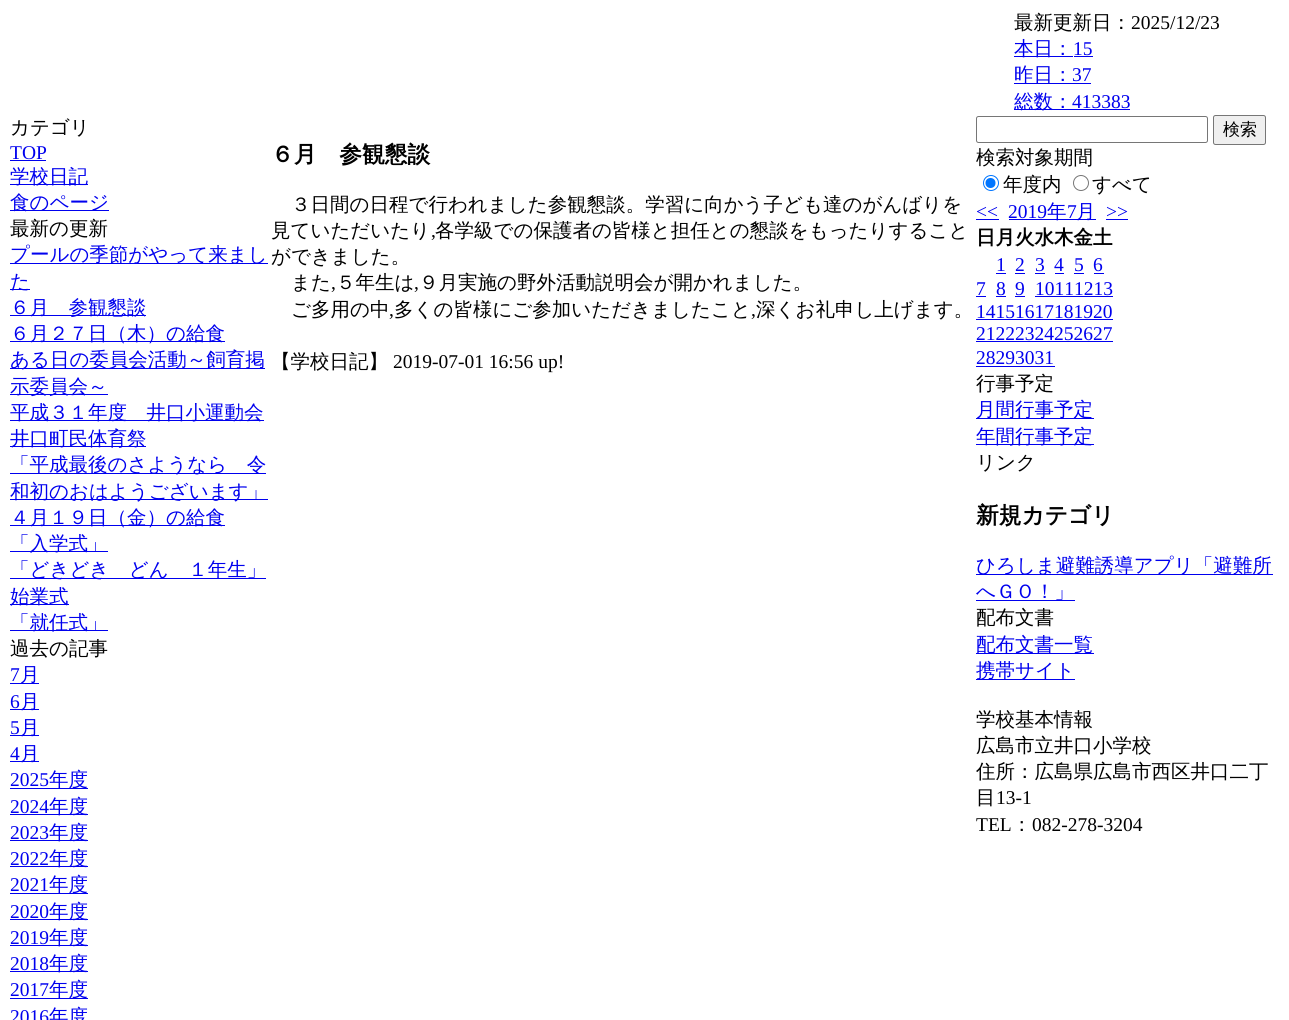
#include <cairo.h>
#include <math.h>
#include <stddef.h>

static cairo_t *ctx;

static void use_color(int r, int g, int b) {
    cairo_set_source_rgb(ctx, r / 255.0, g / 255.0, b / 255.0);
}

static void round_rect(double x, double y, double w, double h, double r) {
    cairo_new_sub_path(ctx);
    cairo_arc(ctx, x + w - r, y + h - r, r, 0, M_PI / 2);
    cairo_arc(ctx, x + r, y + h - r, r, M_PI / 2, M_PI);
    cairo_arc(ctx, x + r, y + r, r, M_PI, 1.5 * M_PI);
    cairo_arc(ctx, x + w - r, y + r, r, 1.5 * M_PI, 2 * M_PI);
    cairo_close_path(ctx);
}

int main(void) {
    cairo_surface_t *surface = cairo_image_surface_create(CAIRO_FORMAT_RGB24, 1289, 1020);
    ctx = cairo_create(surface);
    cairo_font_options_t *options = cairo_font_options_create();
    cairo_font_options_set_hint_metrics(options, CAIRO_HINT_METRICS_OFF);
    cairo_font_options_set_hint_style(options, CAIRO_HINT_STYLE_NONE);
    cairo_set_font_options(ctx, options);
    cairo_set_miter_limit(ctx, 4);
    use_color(255, 255, 255);
    cairo_paint(ctx);
    cairo_select_font_face(ctx, "WenQuanYi Zen Hei Medium", CAIRO_FONT_SLANT_NORMAL, CAIRO_FONT_WEIGHT_NORMAL);
    cairo_set_font_size(ctx, 19.5);
    use_color(0, 0, 0);
    cairo_move_to(ctx, 1014, 29);
    cairo_show_text(ctx, "最新更新日：");
    cairo_select_font_face(ctx, "Liberation Serif", CAIRO_FONT_SLANT_NORMAL, CAIRO_FONT_WEIGHT_NORMAL);
    cairo_move_to(ctx, 1131, 29);
    cairo_show_text(ctx, "2025/12/23");
    use_color(0, 0, 238);
    cairo_rectangle(ctx, 1014, 56, 59, 1);
    cairo_fill(ctx);
    cairo_select_font_face(ctx, "WenQuanYi Zen Hei Medium", CAIRO_FONT_SLANT_NORMAL, CAIRO_FONT_WEIGHT_NORMAL);
    cairo_move_to(ctx, 1014, 55);
    cairo_show_text(ctx, "本日：");
    cairo_select_font_face(ctx, "Liberation Serif", CAIRO_FONT_SLANT_NORMAL, CAIRO_FONT_WEIGHT_NORMAL);
    cairo_move_to(ctx, 1073, 55);
    cairo_show_text(ctx, "15");
    cairo_rectangle(ctx, 1074, 56, 19, 1);
    cairo_fill(ctx);
    cairo_rectangle(ctx, 1014, 83, 77, 1);
    cairo_fill(ctx);
    cairo_select_font_face(ctx, "WenQuanYi Zen Hei Medium", CAIRO_FONT_SLANT_NORMAL, CAIRO_FONT_WEIGHT_NORMAL);
    cairo_move_to(ctx, 1014, 81);
    cairo_show_text(ctx, "昨日：");
    cairo_select_font_face(ctx, "Liberation Serif", CAIRO_FONT_SLANT_NORMAL, CAIRO_FONT_WEIGHT_NORMAL);
    cairo_move_to(ctx, 1072, 81);
    cairo_show_text(ctx, "37");
    cairo_rectangle(ctx, 1014, 109, 116, 1);
    cairo_fill(ctx);
    cairo_select_font_face(ctx, "WenQuanYi Zen Hei Medium", CAIRO_FONT_SLANT_NORMAL, CAIRO_FONT_WEIGHT_NORMAL);
    cairo_move_to(ctx, 1014, 108);
    cairo_show_text(ctx, "総数：");
    cairo_select_font_face(ctx, "Liberation Serif", CAIRO_FONT_SLANT_NORMAL, CAIRO_FONT_WEIGHT_NORMAL);
    cairo_move_to(ctx, 1072, 108);
    cairo_show_text(ctx, "413383");
    cairo_select_font_face(ctx, "WenQuanYi Zen Hei Medium", CAIRO_FONT_SLANT_NORMAL, CAIRO_FONT_WEIGHT_NORMAL);
    use_color(0, 0, 0);
    cairo_move_to(ctx, 10, 134);
    cairo_show_text(ctx, "カテゴリ");
    cairo_select_font_face(ctx, "Liberation Serif", CAIRO_FONT_SLANT_NORMAL, CAIRO_FONT_WEIGHT_NORMAL);
    use_color(0, 0, 238);
    cairo_move_to(ctx, 10, 159);
    cairo_show_text(ctx, "TOP");
    cairo_rectangle(ctx, 10, 160, 36, 1);
    cairo_fill(ctx);
    cairo_rectangle(ctx, 10, 184, 78, 1);
    cairo_fill(ctx);
    cairo_select_font_face(ctx, "WenQuanYi Zen Hei Medium", CAIRO_FONT_SLANT_NORMAL, CAIRO_FONT_WEIGHT_NORMAL);
    cairo_move_to(ctx, 10, 183);
    cairo_show_text(ctx, "学校日記");
    cairo_rectangle(ctx, 10, 210, 99, 1);
    cairo_fill(ctx);
    cairo_move_to(ctx, 10, 209);
    cairo_show_text(ctx, "食のページ");
    use_color(0, 0, 0);
    cairo_move_to(ctx, 10, 235);
    cairo_show_text(ctx, "最新の更新");
    use_color(0, 0, 238);
    cairo_rectangle(ctx, 10, 263, 258, 1);
    cairo_fill(ctx);
    cairo_move_to(ctx, 10, 261);
    cairo_show_text(ctx, "プールの季節がやって来まし");
    cairo_rectangle(ctx, 10, 289, 20, 1);
    cairo_fill(ctx);
    cairo_move_to(ctx, 10, 288);
    cairo_show_text(ctx, "た");
    cairo_rectangle(ctx, 10, 315, 136, 1);
    cairo_fill(ctx);
    cairo_move_to(ctx, 10, 314);
    cairo_show_text(ctx, "６月　参観懇談");
    cairo_rectangle(ctx, 10, 341, 215, 1);
    cairo_fill(ctx);
    cairo_move_to(ctx, 10, 340);
    cairo_show_text(ctx, "６月２７日（木）の給食");
    cairo_rectangle(ctx, 10, 368, 255, 1);
    cairo_fill(ctx);
    cairo_move_to(ctx, 10, 366);
    cairo_show_text(ctx, "ある日の委員会活動～飼育掲");
    cairo_rectangle(ctx, 10, 394, 98, 1);
    cairo_fill(ctx);
    cairo_move_to(ctx, 10, 393);
    cairo_show_text(ctx, "示委員会～");
    cairo_rectangle(ctx, 10, 420, 254, 1);
    cairo_fill(ctx);
    cairo_move_to(ctx, 10, 419);
    cairo_show_text(ctx, "平成３１年度　井口小運動会");
    cairo_rectangle(ctx, 10, 446, 136, 1);
    cairo_fill(ctx);
    cairo_move_to(ctx, 10, 445);
    cairo_show_text(ctx, "井口町民体育祭");
    cairo_rectangle(ctx, 10, 473, 256, 1);
    cairo_fill(ctx);
    cairo_move_to(ctx, 10, 471);
    cairo_show_text(ctx, "「平成最後のさようなら　令");
    cairo_rectangle(ctx, 10, 499, 258, 1);
    cairo_fill(ctx);
    cairo_move_to(ctx, 10, 498);
    cairo_show_text(ctx, "和初のおはようございます」");
    cairo_rectangle(ctx, 10, 525, 215, 1);
    cairo_fill(ctx);
    cairo_move_to(ctx, 10, 524);
    cairo_show_text(ctx, "４月１９日（金）の給食");
    cairo_rectangle(ctx, 10, 551, 98, 1);
    cairo_fill(ctx);
    cairo_move_to(ctx, 10, 550);
    cairo_show_text(ctx, "「入学式」");
    cairo_rectangle(ctx, 10, 578, 256, 1);
    cairo_fill(ctx);
    cairo_move_to(ctx, 10, 576);
    cairo_show_text(ctx, "「どきどき　どん　１年生」");
    cairo_rectangle(ctx, 10, 604, 59, 1);
    cairo_fill(ctx);
    cairo_move_to(ctx, 10, 603);
    cairo_show_text(ctx, "始業式");
    cairo_rectangle(ctx, 10, 630, 98, 1);
    cairo_fill(ctx);
    cairo_move_to(ctx, 10, 629);
    cairo_show_text(ctx, "「就任式」");
    use_color(0, 0, 0);
    cairo_move_to(ctx, 10, 655);
    cairo_show_text(ctx, "過去の記事");
    cairo_select_font_face(ctx, "Liberation Serif", CAIRO_FONT_SLANT_NORMAL, CAIRO_FONT_WEIGHT_NORMAL);
    use_color(0, 0, 238);
    cairo_move_to(ctx, 10, 681);
    cairo_show_text(ctx, "7");
    cairo_rectangle(ctx, 10, 683, 29, 1);
    cairo_fill(ctx);
    cairo_select_font_face(ctx, "WenQuanYi Zen Hei Medium", CAIRO_FONT_SLANT_NORMAL, CAIRO_FONT_WEIGHT_NORMAL);
    cairo_move_to(ctx, 20, 681);
    cairo_show_text(ctx, "月");
    cairo_select_font_face(ctx, "Liberation Serif", CAIRO_FONT_SLANT_NORMAL, CAIRO_FONT_WEIGHT_NORMAL);
    cairo_move_to(ctx, 10, 708);
    cairo_show_text(ctx, "6");
    cairo_rectangle(ctx, 10, 709, 29, 1);
    cairo_fill(ctx);
    cairo_select_font_face(ctx, "WenQuanYi Zen Hei Medium", CAIRO_FONT_SLANT_NORMAL, CAIRO_FONT_WEIGHT_NORMAL);
    cairo_move_to(ctx, 20, 708);
    cairo_show_text(ctx, "月");
    cairo_select_font_face(ctx, "Liberation Serif", CAIRO_FONT_SLANT_NORMAL, CAIRO_FONT_WEIGHT_NORMAL);
    cairo_move_to(ctx, 10, 734);
    cairo_show_text(ctx, "5");
    cairo_rectangle(ctx, 10, 735, 29, 1);
    cairo_fill(ctx);
    cairo_select_font_face(ctx, "WenQuanYi Zen Hei Medium", CAIRO_FONT_SLANT_NORMAL, CAIRO_FONT_WEIGHT_NORMAL);
    cairo_move_to(ctx, 20, 734);
    cairo_show_text(ctx, "月");
    cairo_select_font_face(ctx, "Liberation Serif", CAIRO_FONT_SLANT_NORMAL, CAIRO_FONT_WEIGHT_NORMAL);
    cairo_move_to(ctx, 10, 760);
    cairo_show_text(ctx, "4");
    cairo_rectangle(ctx, 10, 761, 29, 1);
    cairo_fill(ctx);
    cairo_select_font_face(ctx, "WenQuanYi Zen Hei Medium", CAIRO_FONT_SLANT_NORMAL, CAIRO_FONT_WEIGHT_NORMAL);
    cairo_move_to(ctx, 20, 760);
    cairo_show_text(ctx, "月");
    cairo_select_font_face(ctx, "Liberation Serif", CAIRO_FONT_SLANT_NORMAL, CAIRO_FONT_WEIGHT_NORMAL);
    cairo_move_to(ctx, 10, 786);
    cairo_show_text(ctx, "2025");
    cairo_rectangle(ctx, 10, 788, 78, 1);
    cairo_fill(ctx);
    cairo_select_font_face(ctx, "WenQuanYi Zen Hei Medium", CAIRO_FONT_SLANT_NORMAL, CAIRO_FONT_WEIGHT_NORMAL);
    cairo_move_to(ctx, 49, 786);
    cairo_show_text(ctx, "年度");
    cairo_select_font_face(ctx, "Liberation Serif", CAIRO_FONT_SLANT_NORMAL, CAIRO_FONT_WEIGHT_NORMAL);
    cairo_move_to(ctx, 10, 813);
    cairo_show_text(ctx, "2024");
    cairo_rectangle(ctx, 10, 814, 78, 1);
    cairo_fill(ctx);
    cairo_select_font_face(ctx, "WenQuanYi Zen Hei Medium", CAIRO_FONT_SLANT_NORMAL, CAIRO_FONT_WEIGHT_NORMAL);
    cairo_move_to(ctx, 49, 813);
    cairo_show_text(ctx, "年度");
    cairo_select_font_face(ctx, "Liberation Serif", CAIRO_FONT_SLANT_NORMAL, CAIRO_FONT_WEIGHT_NORMAL);
    cairo_move_to(ctx, 10, 839);
    cairo_show_text(ctx, "2023");
    cairo_rectangle(ctx, 10, 840, 78, 1);
    cairo_fill(ctx);
    cairo_select_font_face(ctx, "WenQuanYi Zen Hei Medium", CAIRO_FONT_SLANT_NORMAL, CAIRO_FONT_WEIGHT_NORMAL);
    cairo_move_to(ctx, 49, 839);
    cairo_show_text(ctx, "年度");
    cairo_select_font_face(ctx, "Liberation Serif", CAIRO_FONT_SLANT_NORMAL, CAIRO_FONT_WEIGHT_NORMAL);
    cairo_move_to(ctx, 10, 865);
    cairo_show_text(ctx, "2022");
    cairo_rectangle(ctx, 10, 866, 78, 1);
    cairo_fill(ctx);
    cairo_select_font_face(ctx, "WenQuanYi Zen Hei Medium", CAIRO_FONT_SLANT_NORMAL, CAIRO_FONT_WEIGHT_NORMAL);
    cairo_move_to(ctx, 49, 865);
    cairo_show_text(ctx, "年度");
    cairo_select_font_face(ctx, "Liberation Serif", CAIRO_FONT_SLANT_NORMAL, CAIRO_FONT_WEIGHT_NORMAL);
    cairo_move_to(ctx, 10, 891);
    cairo_show_text(ctx, "2021");
    cairo_rectangle(ctx, 10, 893, 78, 1);
    cairo_fill(ctx);
    cairo_select_font_face(ctx, "WenQuanYi Zen Hei Medium", CAIRO_FONT_SLANT_NORMAL, CAIRO_FONT_WEIGHT_NORMAL);
    cairo_move_to(ctx, 49, 891);
    cairo_show_text(ctx, "年度");
    cairo_select_font_face(ctx, "Liberation Serif", CAIRO_FONT_SLANT_NORMAL, CAIRO_FONT_WEIGHT_NORMAL);
    cairo_move_to(ctx, 10, 918);
    cairo_show_text(ctx, "2020");
    cairo_rectangle(ctx, 10, 919, 78, 1);
    cairo_fill(ctx);
    cairo_select_font_face(ctx, "WenQuanYi Zen Hei Medium", CAIRO_FONT_SLANT_NORMAL, CAIRO_FONT_WEIGHT_NORMAL);
    cairo_move_to(ctx, 49, 918);
    cairo_show_text(ctx, "年度");
    cairo_select_font_face(ctx, "Liberation Serif", CAIRO_FONT_SLANT_NORMAL, CAIRO_FONT_WEIGHT_NORMAL);
    cairo_move_to(ctx, 10, 944);
    cairo_show_text(ctx, "2019");
    cairo_rectangle(ctx, 10, 945, 78, 1);
    cairo_fill(ctx);
    cairo_select_font_face(ctx, "WenQuanYi Zen Hei Medium", CAIRO_FONT_SLANT_NORMAL, CAIRO_FONT_WEIGHT_NORMAL);
    cairo_move_to(ctx, 49, 944);
    cairo_show_text(ctx, "年度");
    cairo_select_font_face(ctx, "Liberation Serif", CAIRO_FONT_SLANT_NORMAL, CAIRO_FONT_WEIGHT_NORMAL);
    cairo_move_to(ctx, 10, 970);
    cairo_show_text(ctx, "2018");
    cairo_rectangle(ctx, 10, 971, 78, 1);
    cairo_fill(ctx);
    cairo_select_font_face(ctx, "WenQuanYi Zen Hei Medium", CAIRO_FONT_SLANT_NORMAL, CAIRO_FONT_WEIGHT_NORMAL);
    cairo_move_to(ctx, 49, 970);
    cairo_show_text(ctx, "年度");
    cairo_select_font_face(ctx, "Liberation Serif", CAIRO_FONT_SLANT_NORMAL, CAIRO_FONT_WEIGHT_NORMAL);
    cairo_move_to(ctx, 10, 996);
    cairo_show_text(ctx, "2017");
    cairo_rectangle(ctx, 10, 998, 78, 1);
    cairo_fill(ctx);
    cairo_select_font_face(ctx, "WenQuanYi Zen Hei Medium", CAIRO_FONT_SLANT_NORMAL, CAIRO_FONT_WEIGHT_NORMAL);
    cairo_move_to(ctx, 49, 996);
    cairo_show_text(ctx, "年度");
    cairo_select_font_face(ctx, "Liberation Serif", CAIRO_FONT_SLANT_NORMAL, CAIRO_FONT_WEIGHT_NORMAL);
    cairo_move_to(ctx, 10, 1023);
    cairo_show_text(ctx, "2016");
    cairo_select_font_face(ctx, "WenQuanYi Zen Hei Medium", CAIRO_FONT_SLANT_NORMAL, CAIRO_FONT_WEIGHT_NORMAL);
    cairo_move_to(ctx, 49, 1023);
    cairo_show_text(ctx, "年度");
    cairo_select_font_face(ctx, "WenQuanYi Zen Hei", CAIRO_FONT_SLANT_NORMAL, CAIRO_FONT_WEIGHT_BOLD);
    cairo_set_font_size(ctx, 22.75);
    use_color(0, 0, 0);
    cairo_move_to(ctx, 271, 162);
    cairo_show_text(ctx, "６月　参観懇談");
    cairo_select_font_face(ctx, "WenQuanYi Zen Hei Medium", CAIRO_FONT_SLANT_NORMAL, CAIRO_FONT_WEIGHT_NORMAL);
    cairo_set_font_size(ctx, 19.5);
    cairo_move_to(ctx, 291, 211);
    cairo_show_text(ctx, "３日間の日程で行われました参観懇談。学習に向かう子ども達のがんばりを");
    cairo_move_to(ctx, 271, 237);
    cairo_show_text(ctx, "見ていただいたり");
    cairo_select_font_face(ctx, "Liberation Serif", CAIRO_FONT_SLANT_NORMAL, CAIRO_FONT_WEIGHT_NORMAL);
    cairo_move_to(ctx, 431, 237);
    cairo_show_text(ctx, ",");
    cairo_select_font_face(ctx, "WenQuanYi Zen Hei Medium", CAIRO_FONT_SLANT_NORMAL, CAIRO_FONT_WEIGHT_NORMAL);
    cairo_move_to(ctx, 435, 237);
    cairo_show_text(ctx, "各学級での保護者の皆様と担任との懇談をもったりすること");
    cairo_move_to(ctx, 271, 263);
    cairo_show_text(ctx, "ができました。");
    cairo_move_to(ctx, 291, 289);
    cairo_show_text(ctx, "また");
    cairo_select_font_face(ctx, "Liberation Serif", CAIRO_FONT_SLANT_NORMAL, CAIRO_FONT_WEIGHT_NORMAL);
    cairo_move_to(ctx, 331, 289);
    cairo_show_text(ctx, ",");
    cairo_select_font_face(ctx, "WenQuanYi Zen Hei Medium", CAIRO_FONT_SLANT_NORMAL, CAIRO_FONT_WEIGHT_NORMAL);
    cairo_move_to(ctx, 336, 289);
    cairo_show_text(ctx, "５年生は");
    cairo_select_font_face(ctx, "Liberation Serif", CAIRO_FONT_SLANT_NORMAL, CAIRO_FONT_WEIGHT_NORMAL);
    cairo_move_to(ctx, 414, 289);
    cairo_show_text(ctx, ",");
    cairo_select_font_face(ctx, "WenQuanYi Zen Hei Medium", CAIRO_FONT_SLANT_NORMAL, CAIRO_FONT_WEIGHT_NORMAL);
    cairo_move_to(ctx, 419, 289);
    cairo_show_text(ctx, "９月実施の野外活動説明会が開かれました。");
    cairo_move_to(ctx, 291, 316);
    cairo_show_text(ctx, "ご多用の中");
    cairo_select_font_face(ctx, "Liberation Serif", CAIRO_FONT_SLANT_NORMAL, CAIRO_FONT_WEIGHT_NORMAL);
    cairo_move_to(ctx, 389, 316);
    cairo_show_text(ctx, ",");
    cairo_select_font_face(ctx, "WenQuanYi Zen Hei Medium", CAIRO_FONT_SLANT_NORMAL, CAIRO_FONT_WEIGHT_NORMAL);
    cairo_move_to(ctx, 394, 316);
    cairo_show_text(ctx, "多くの皆様にご参加いただきましたこと");
    cairo_select_font_face(ctx, "Liberation Serif", CAIRO_FONT_SLANT_NORMAL, CAIRO_FONT_WEIGHT_NORMAL);
    cairo_move_to(ctx, 751, 316);
    cairo_show_text(ctx, ",");
    cairo_select_font_face(ctx, "WenQuanYi Zen Hei Medium", CAIRO_FONT_SLANT_NORMAL, CAIRO_FONT_WEIGHT_NORMAL);
    cairo_move_to(ctx, 756, 316);
    cairo_show_text(ctx, "深くお礼申し上げます。");
    cairo_move_to(ctx, 271, 368);
    cairo_show_text(ctx, "【学校日記】");
    cairo_select_font_face(ctx, "Liberation Serif", CAIRO_FONT_SLANT_NORMAL, CAIRO_FONT_WEIGHT_NORMAL);
    cairo_move_to(ctx, 393, 368);
    cairo_show_text(ctx, "2019-07-01 16:56 up!");
    round_rect(976.5, 116.5, 231, 26, 2);
    use_color(118, 118, 118);
    cairo_set_line_width(ctx, 1);
    cairo_stroke(ctx);
    use_color(239, 239, 239);
    round_rect(1213.5, 115.5, 52, 29, 2);
    cairo_fill_preserve(ctx);
    use_color(118, 118, 118);
    cairo_stroke(ctx);
    cairo_select_font_face(ctx, "WenQuanYi Zen Hei Medium", CAIRO_FONT_SLANT_NORMAL, CAIRO_FONT_WEIGHT_NORMAL);
    cairo_set_font_size(ctx, 17);
    use_color(0, 0, 0);
    cairo_move_to(ctx, 1223, 135);
    cairo_show_text(ctx, "検索");
    cairo_set_font_size(ctx, 19.5);
    cairo_move_to(ctx, 976, 164);
    cairo_show_text(ctx, "検索対象期間");
    cairo_new_path(ctx);
    cairo_arc(ctx, 991, 183, 7.5, 0, 2 * M_PI);
    use_color(0, 117, 255);
    cairo_stroke(ctx);
    cairo_arc(ctx, 990.5, 183, 5, 0, 2 * M_PI);
    cairo_fill(ctx);
    use_color(0, 0, 0);
    cairo_move_to(ctx, 1003, 191);
    cairo_show_text(ctx, "年度内");
    cairo_new_path(ctx);
    cairo_arc(ctx, 1081, 183, 7.5, 0, 2 * M_PI);
    use_color(118, 118, 118);
    cairo_stroke(ctx);
    use_color(0, 0, 0);
    cairo_move_to(ctx, 1092, 191);
    cairo_show_text(ctx, "すべて");
    cairo_select_font_face(ctx, "Liberation Serif", CAIRO_FONT_SLANT_NORMAL, CAIRO_FONT_WEIGHT_NORMAL);
    use_color(0, 0, 238);
    cairo_move_to(ctx, 976, 218);
    cairo_show_text(ctx, "<<");
    cairo_rectangle(ctx, 976, 219, 23, 1);
    cairo_fill(ctx);
    cairo_move_to(ctx, 1008, 218);
    cairo_show_text(ctx, "2019");
    cairo_rectangle(ctx, 1009, 219, 87, 1);
    cairo_fill(ctx);
    cairo_select_font_face(ctx, "WenQuanYi Zen Hei Medium", CAIRO_FONT_SLANT_NORMAL, CAIRO_FONT_WEIGHT_NORMAL);
    cairo_move_to(ctx, 1047, 218);
    cairo_show_text(ctx, "年");
    cairo_select_font_face(ctx, "Liberation Serif", CAIRO_FONT_SLANT_NORMAL, CAIRO_FONT_WEIGHT_NORMAL);
    cairo_move_to(ctx, 1067, 218);
    cairo_show_text(ctx, "7");
    cairo_select_font_face(ctx, "WenQuanYi Zen Hei Medium", CAIRO_FONT_SLANT_NORMAL, CAIRO_FONT_WEIGHT_NORMAL);
    cairo_move_to(ctx, 1076, 218);
    cairo_show_text(ctx, "月");
    cairo_select_font_face(ctx, "Liberation Serif", CAIRO_FONT_SLANT_NORMAL, CAIRO_FONT_WEIGHT_NORMAL);
    cairo_move_to(ctx, 1106, 218);
    cairo_show_text(ctx, ">>");
    cairo_rectangle(ctx, 1106, 219, 22, 1);
    cairo_fill(ctx);
    cairo_select_font_face(ctx, "WenQuanYi Zen Hei", CAIRO_FONT_SLANT_NORMAL, CAIRO_FONT_WEIGHT_BOLD);
    use_color(0, 0, 0);
    cairo_move_to(ctx, 976, 244);
    cairo_show_text(ctx, "日月火水木金土");
    cairo_select_font_face(ctx, "Liberation Serif", CAIRO_FONT_SLANT_NORMAL, CAIRO_FONT_WEIGHT_NORMAL);
    use_color(0, 0, 238);
    cairo_move_to(ctx, 996, 271);
    cairo_show_text(ctx, "1");
    cairo_rectangle(ctx, 996, 273, 10, 1);
    cairo_fill(ctx);
    cairo_move_to(ctx, 1015, 271);
    cairo_show_text(ctx, "2");
    cairo_rectangle(ctx, 1015, 273, 10, 1);
    cairo_fill(ctx);
    cairo_move_to(ctx, 1035, 271);
    cairo_show_text(ctx, "3");
    cairo_rectangle(ctx, 1035, 273, 10, 1);
    cairo_fill(ctx);
    cairo_move_to(ctx, 1054, 271);
    cairo_show_text(ctx, "4");
    cairo_rectangle(ctx, 1055, 273, 9, 1);
    cairo_fill(ctx);
    cairo_move_to(ctx, 1074, 271);
    cairo_show_text(ctx, "5");
    cairo_rectangle(ctx, 1074, 273, 10, 1);
    cairo_fill(ctx);
    cairo_move_to(ctx, 1093, 271);
    cairo_show_text(ctx, "6");
    cairo_rectangle(ctx, 1094, 273, 10, 1);
    cairo_fill(ctx);
    cairo_move_to(ctx, 976, 295);
    cairo_show_text(ctx, "7");
    cairo_rectangle(ctx, 976, 296, 10, 1);
    cairo_fill(ctx);
    cairo_move_to(ctx, 996, 295);
    cairo_show_text(ctx, "8");
    cairo_rectangle(ctx, 996, 296, 10, 1);
    cairo_fill(ctx);
    cairo_move_to(ctx, 1015, 295);
    cairo_show_text(ctx, "9");
    cairo_rectangle(ctx, 1015, 296, 10, 1);
    cairo_fill(ctx);
    cairo_move_to(ctx, 1035, 295);
    cairo_show_text(ctx, "10111213");
    cairo_rectangle(ctx, 1035, 296, 78, 1);
    cairo_fill(ctx);
    cairo_move_to(ctx, 976, 318);
    cairo_show_text(ctx, "14151617181920");
    cairo_rectangle(ctx, 976, 319, 137, 1);
    cairo_fill(ctx);
    cairo_move_to(ctx, 976, 340);
    cairo_show_text(ctx, "21222324252627");
    cairo_rectangle(ctx, 976, 341, 137, 1);
    cairo_fill(ctx);
    cairo_move_to(ctx, 976, 364);
    cairo_show_text(ctx, "28293031");
    cairo_rectangle(ctx, 976, 366, 79, 1);
    cairo_fill(ctx);
    cairo_select_font_face(ctx, "WenQuanYi Zen Hei Medium", CAIRO_FONT_SLANT_NORMAL, CAIRO_FONT_WEIGHT_NORMAL);
    use_color(0, 0, 0);
    cairo_move_to(ctx, 976, 390);
    cairo_show_text(ctx, "行事予定");
    use_color(0, 0, 238);
    cairo_rectangle(ctx, 976, 418, 118, 1);
    cairo_fill(ctx);
    cairo_move_to(ctx, 976, 416);
    cairo_show_text(ctx, "月間行事予定");
    cairo_rectangle(ctx, 976, 444, 118, 1);
    cairo_fill(ctx);
    cairo_move_to(ctx, 976, 443);
    cairo_show_text(ctx, "年間行事予定");
    use_color(0, 0, 0);
    cairo_move_to(ctx, 976, 469);
    cairo_show_text(ctx, "リンク");
    cairo_select_font_face(ctx, "WenQuanYi Zen Hei", CAIRO_FONT_SLANT_NORMAL, CAIRO_FONT_WEIGHT_BOLD);
    cairo_set_font_size(ctx, 22.75);
    cairo_move_to(ctx, 976, 523);
    cairo_show_text(ctx, "新規カテゴリ");
    use_color(0, 0, 238);
    cairo_rectangle(ctx, 976, 574, 297, 1);
    cairo_fill(ctx);
    cairo_select_font_face(ctx, "WenQuanYi Zen Hei Medium", CAIRO_FONT_SLANT_NORMAL, CAIRO_FONT_WEIGHT_NORMAL);
    cairo_set_font_size(ctx, 19.5);
    cairo_move_to(ctx, 976, 572);
    cairo_show_text(ctx, "ひろしま避難誘導アプリ「避難所");
    cairo_move_to(ctx, 976, 598);
    cairo_show_text(ctx, "へＧＯ！」");
    cairo_rectangle(ctx, 976, 600, 99, 1);
    cairo_fill(ctx);
    use_color(0, 0, 0);
    cairo_move_to(ctx, 976, 624);
    cairo_show_text(ctx, "配布文書");
    use_color(0, 0, 238);
    cairo_rectangle(ctx, 976, 653, 118, 1);
    cairo_fill(ctx);
    cairo_move_to(ctx, 976, 651);
    cairo_show_text(ctx, "配布文書一覧");
    cairo_rectangle(ctx, 976, 679, 99, 1);
    cairo_fill(ctx);
    cairo_move_to(ctx, 976, 677);
    cairo_show_text(ctx, "携帯サイト");
    use_color(0, 0, 0);
    cairo_move_to(ctx, 976, 726);
    cairo_show_text(ctx, "学校基本情報");
    cairo_move_to(ctx, 976, 752);
    cairo_show_text(ctx, "広島市立井口小学校");
    cairo_move_to(ctx, 976, 778);
    cairo_show_text(ctx, "住所：広島県広島市西区井口二丁");
    cairo_move_to(ctx, 976, 804);
    cairo_show_text(ctx, "目");
    cairo_select_font_face(ctx, "Liberation Serif", CAIRO_FONT_SLANT_NORMAL, CAIRO_FONT_WEIGHT_NORMAL);
    cairo_move_to(ctx, 996, 804);
    cairo_show_text(ctx, "13-1");
    cairo_move_to(ctx, 976, 831);
    cairo_show_text(ctx, "TEL");
    cairo_select_font_face(ctx, "WenQuanYi Zen Hei Medium", CAIRO_FONT_SLANT_NORMAL, CAIRO_FONT_WEIGHT_NORMAL);
    cairo_move_to(ctx, 1012, 831);
    cairo_show_text(ctx, "：");
    cairo_select_font_face(ctx, "Liberation Serif", CAIRO_FONT_SLANT_NORMAL, CAIRO_FONT_WEIGHT_NORMAL);
    cairo_move_to(ctx, 1032, 831);
    cairo_show_text(ctx, "082-278-3204");
    cairo_surface_write_to_png(surface, "result.png");
    cairo_font_options_destroy(options);
    cairo_destroy(ctx);
    cairo_surface_destroy(surface);
    return 0;
}
